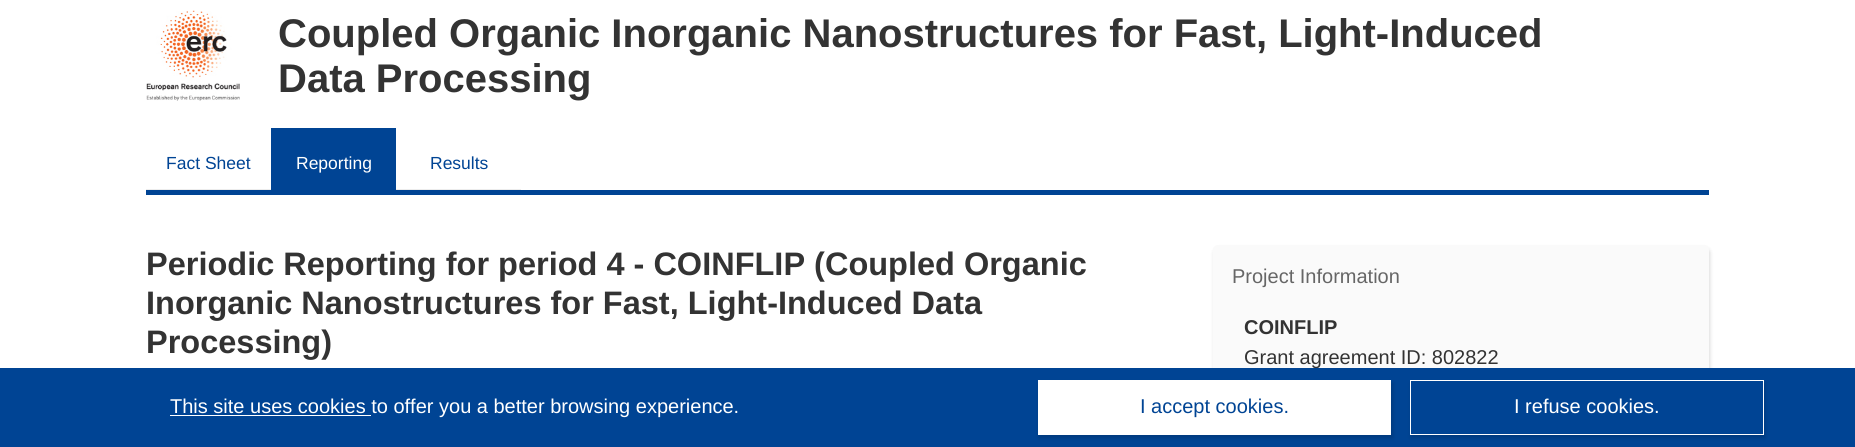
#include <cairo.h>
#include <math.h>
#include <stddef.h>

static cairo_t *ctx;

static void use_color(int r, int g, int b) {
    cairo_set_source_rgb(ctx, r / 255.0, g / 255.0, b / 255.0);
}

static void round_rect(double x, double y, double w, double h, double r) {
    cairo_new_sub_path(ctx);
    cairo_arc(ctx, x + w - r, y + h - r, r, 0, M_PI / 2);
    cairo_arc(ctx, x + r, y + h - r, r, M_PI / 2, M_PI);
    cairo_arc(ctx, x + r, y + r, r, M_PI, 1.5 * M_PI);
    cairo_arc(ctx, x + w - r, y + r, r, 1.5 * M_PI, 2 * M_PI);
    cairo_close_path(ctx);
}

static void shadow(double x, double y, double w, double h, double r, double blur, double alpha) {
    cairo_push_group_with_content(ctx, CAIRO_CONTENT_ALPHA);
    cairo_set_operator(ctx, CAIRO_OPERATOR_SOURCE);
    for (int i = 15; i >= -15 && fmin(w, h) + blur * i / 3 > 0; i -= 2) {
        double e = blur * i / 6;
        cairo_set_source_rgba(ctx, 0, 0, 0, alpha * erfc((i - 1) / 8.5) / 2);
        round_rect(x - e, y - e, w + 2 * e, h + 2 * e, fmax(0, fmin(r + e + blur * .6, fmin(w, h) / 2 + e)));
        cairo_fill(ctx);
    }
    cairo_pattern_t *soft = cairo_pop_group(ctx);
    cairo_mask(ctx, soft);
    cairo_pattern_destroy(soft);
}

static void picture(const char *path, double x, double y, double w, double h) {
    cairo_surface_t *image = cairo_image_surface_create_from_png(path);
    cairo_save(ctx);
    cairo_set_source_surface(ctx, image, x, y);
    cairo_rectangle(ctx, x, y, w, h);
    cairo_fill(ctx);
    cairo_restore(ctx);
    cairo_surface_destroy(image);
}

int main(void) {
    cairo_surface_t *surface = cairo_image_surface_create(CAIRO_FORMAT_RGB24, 1855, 447);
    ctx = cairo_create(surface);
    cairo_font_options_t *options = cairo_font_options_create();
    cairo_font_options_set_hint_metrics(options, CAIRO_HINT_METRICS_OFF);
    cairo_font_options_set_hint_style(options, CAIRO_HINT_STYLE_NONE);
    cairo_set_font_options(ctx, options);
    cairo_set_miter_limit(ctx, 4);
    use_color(255, 255, 255);
    cairo_paint(ctx);
    picture("img1.png", 146, 10, 94, 91);
    cairo_select_font_face(ctx, "Liberation Sans", CAIRO_FONT_SLANT_NORMAL, CAIRO_FONT_WEIGHT_BOLD);
    cairo_set_font_size(ctx, 40);
    use_color(51, 51, 51);
    cairo_move_to(ctx, 278, 47);
    cairo_show_text(ctx, "Coupled Organic Inorganic Nanostructures for Fast, Light-Induced");
    cairo_move_to(ctx, 278, 92);
    cairo_show_text(ctx, "Data Processing");
    use_color(0, 68, 148);
    cairo_rectangle(ctx, 146, 190, 1563, 5);
    cairo_fill(ctx);
    use_color(236, 236, 236);
    cairo_rectangle(ctx, 146, 189, 125, 1);
    cairo_fill(ctx);
    cairo_select_font_face(ctx, "Liberation Sans", CAIRO_FONT_SLANT_NORMAL, CAIRO_FONT_WEIGHT_NORMAL);
    cairo_set_font_size(ctx, 17.5);
    use_color(0, 68, 148);
    cairo_move_to(ctx, 166, 169);
    cairo_show_text(ctx, "Fact Sheet");
    cairo_rectangle(ctx, 271, 128, 125, 62);
    cairo_fill(ctx);
    use_color(255, 255, 255);
    cairo_move_to(ctx, 296, 169);
    cairo_show_text(ctx, "Reporting");
    use_color(236, 236, 236);
    cairo_rectangle(ctx, 396, 189, 125, 1);
    cairo_fill(ctx);
    use_color(0, 68, 148);
    cairo_move_to(ctx, 430, 169);
    cairo_show_text(ctx, "Results");
    cairo_select_font_face(ctx, "Liberation Sans", CAIRO_FONT_SLANT_NORMAL, CAIRO_FONT_WEIGHT_BOLD);
    cairo_set_font_size(ctx, 32.5);
    use_color(51, 51, 51);
    cairo_move_to(ctx, 146, 275);
    cairo_show_text(ctx, "Periodic Reporting for period 4 - COINFLIP (Coupled Organic");
    cairo_move_to(ctx, 146, 314);
    cairo_show_text(ctx, "Inorganic Nanostructures for Fast, Light-Induced Data");
    cairo_move_to(ctx, 146, 353);
    cairo_show_text(ctx, "Processing)");
    use_color(0, 0, 0);
    shadow(1214, 248, 496, 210, 5, 2, 0.15);
    use_color(250, 250, 250);
    round_rect(1213, 245, 496, 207, 5);
    cairo_fill(ctx);
    cairo_select_font_face(ctx, "Liberation Sans", CAIRO_FONT_SLANT_NORMAL, CAIRO_FONT_WEIGHT_NORMAL);
    cairo_set_font_size(ctx, 20);
    use_color(102, 102, 102);
    cairo_move_to(ctx, 1232, 283);
    cairo_show_text(ctx, "Project Information");
    cairo_select_font_face(ctx, "Liberation Sans", CAIRO_FONT_SLANT_NORMAL, CAIRO_FONT_WEIGHT_BOLD);
    use_color(51, 51, 51);
    cairo_move_to(ctx, 1244, 334);
    cairo_show_text(ctx, "COINFLIP");
    cairo_select_font_face(ctx, "Liberation Sans", CAIRO_FONT_SLANT_NORMAL, CAIRO_FONT_WEIGHT_NORMAL);
    cairo_move_to(ctx, 1244, 364);
    cairo_show_text(ctx, "Grant agreement ID: 802822");
    use_color(0, 68, 148);
    cairo_rectangle(ctx, 0, 368, 1855, 79);
    cairo_fill(ctx);
    use_color(255, 255, 255);
    cairo_rectangle(ctx, 170, 415, 201, 1);
    cairo_fill(ctx);
    cairo_move_to(ctx, 170, 413);
    cairo_show_text(ctx, "This site uses cookies to offer you a better browsing experience.");
    use_color(0, 0, 0);
    shadow(1039, 383, 354, 55, 0, 2, 0.15);
    use_color(255, 255, 255);
    cairo_rectangle(ctx, 1038, 380, 353, 55);
    cairo_fill(ctx);
    use_color(0, 68, 148);
    cairo_move_to(ctx, 1140, 413);
    cairo_show_text(ctx, "I accept cookies.");
    use_color(0, 0, 0);
    shadow(1411, 383, 354, 55, 0, 2, 0.15);
    use_color(0, 68, 148);
    cairo_rectangle(ctx, 1410.5, 380.5, 353, 54);
    cairo_fill_preserve(ctx);
    use_color(255, 255, 255);
    cairo_set_line_width(ctx, 1);
    cairo_stroke(ctx);
    cairo_move_to(ctx, 1514, 413);
    cairo_show_text(ctx, "I refuse cookies.");
    cairo_surface_write_to_png(surface, "result.png");
    cairo_font_options_destroy(options);
    cairo_destroy(ctx);
    cairo_surface_destroy(surface);
    return 0;
}
